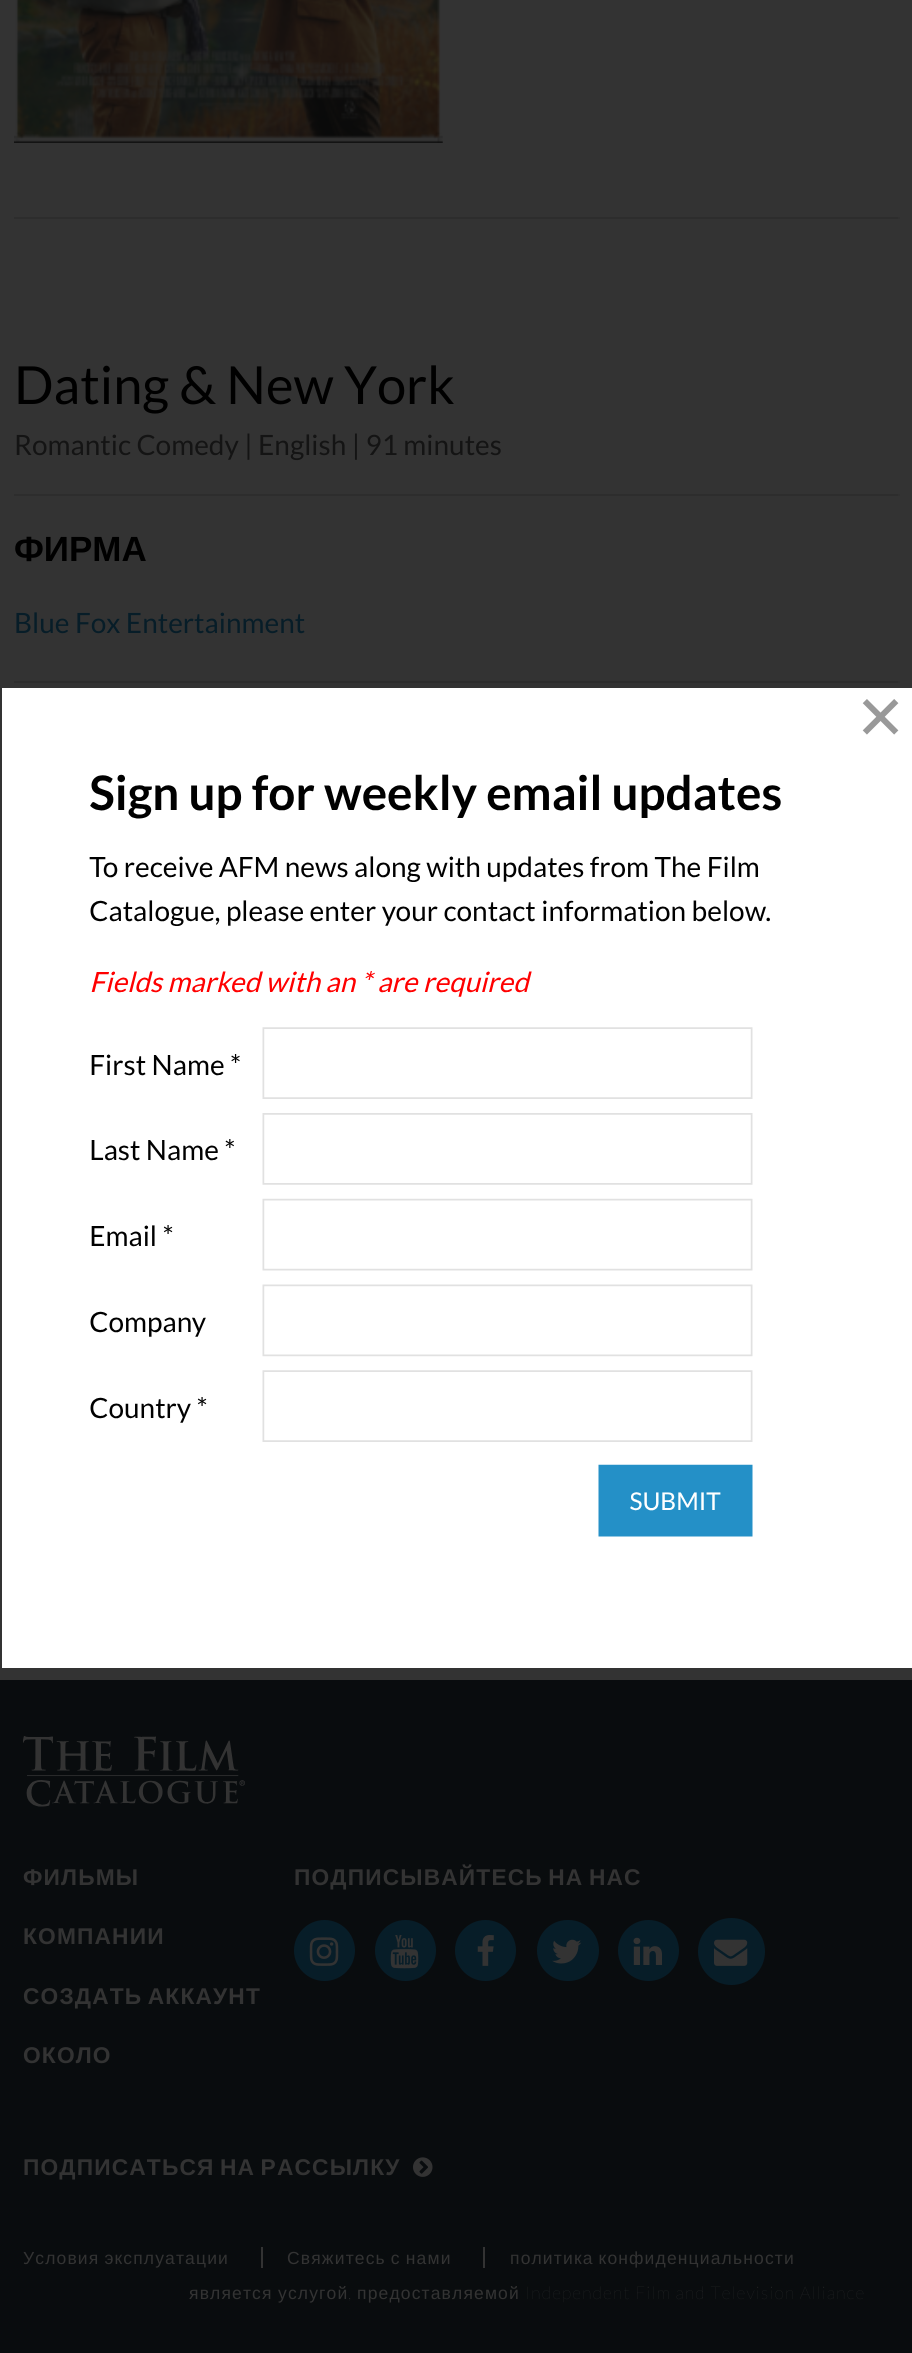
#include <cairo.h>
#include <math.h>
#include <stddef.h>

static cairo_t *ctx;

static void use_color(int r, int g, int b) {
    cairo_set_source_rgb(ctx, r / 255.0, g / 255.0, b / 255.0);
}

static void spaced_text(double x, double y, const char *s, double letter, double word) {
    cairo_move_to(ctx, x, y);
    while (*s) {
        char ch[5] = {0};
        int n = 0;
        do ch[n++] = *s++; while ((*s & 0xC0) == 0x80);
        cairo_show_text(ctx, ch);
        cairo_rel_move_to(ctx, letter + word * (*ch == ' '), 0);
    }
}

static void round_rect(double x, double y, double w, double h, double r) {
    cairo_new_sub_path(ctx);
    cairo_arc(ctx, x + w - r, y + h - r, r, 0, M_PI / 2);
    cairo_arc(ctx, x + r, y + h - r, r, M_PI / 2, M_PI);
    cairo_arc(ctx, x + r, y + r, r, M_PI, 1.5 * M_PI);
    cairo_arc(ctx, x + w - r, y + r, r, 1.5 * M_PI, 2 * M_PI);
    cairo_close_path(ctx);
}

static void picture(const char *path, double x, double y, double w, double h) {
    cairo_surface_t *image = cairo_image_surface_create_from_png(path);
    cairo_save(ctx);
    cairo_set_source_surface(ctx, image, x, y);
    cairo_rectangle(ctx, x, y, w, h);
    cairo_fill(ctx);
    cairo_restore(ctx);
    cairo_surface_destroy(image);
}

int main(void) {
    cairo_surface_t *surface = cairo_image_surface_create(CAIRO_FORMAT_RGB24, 912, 2353);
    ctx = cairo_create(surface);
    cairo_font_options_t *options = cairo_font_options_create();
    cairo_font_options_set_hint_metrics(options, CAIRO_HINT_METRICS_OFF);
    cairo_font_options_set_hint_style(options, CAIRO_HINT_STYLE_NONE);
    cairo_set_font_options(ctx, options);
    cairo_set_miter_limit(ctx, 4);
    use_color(51, 51, 51);
    cairo_paint(ctx);
    picture("img1.png", 14, 0, 429, 143);
    use_color(45, 45, 45);
    cairo_rectangle(ctx, 14, 217, 886, 2);
    cairo_fill(ctx);
    use_color(48, 48, 48);
    cairo_rectangle(ctx, 898, 217, 2, 2);
    cairo_fill(ctx);
    cairo_select_font_face(ctx, "Lato", CAIRO_FONT_SLANT_NORMAL, CAIRO_FONT_WEIGHT_NORMAL);
    cairo_set_font_size(ctx, 52.5);
    use_color(0, 0, 0);
    cairo_move_to(ctx, 14, 404);
    cairo_show_text(ctx, "Dating & New York");
    cairo_set_font_size(ctx, 28);
    use_color(20, 20, 20);
    cairo_move_to(ctx, 14, 455);
    cairo_show_text(ctx, "Romantic Comedy | English | 91 minutes");
    use_color(45, 45, 45);
    cairo_rectangle(ctx, 14, 494, 886, 2);
    cairo_fill(ctx);
    use_color(48, 48, 48);
    cairo_rectangle(ctx, 898, 494, 2, 2);
    cairo_fill(ctx);
    cairo_select_font_face(ctx, "Liberation Sans", CAIRO_FONT_SLANT_NORMAL, CAIRO_FONT_WEIGHT_BOLD);
    cairo_set_font_size(ctx, 35);
    use_color(0, 0, 0);
    cairo_move_to(ctx, 14, 561);
    cairo_show_text(ctx, "ФИРМА");
    cairo_select_font_face(ctx, "Lato", CAIRO_FONT_SLANT_NORMAL, CAIRO_FONT_WEIGHT_NORMAL);
    cairo_set_font_size(ctx, 28);
    use_color(7, 29, 40);
    cairo_move_to(ctx, 14, 633);
    cairo_show_text(ctx, "Blue Fox Entertainment");
    use_color(45, 45, 45);
    cairo_rectangle(ctx, 14, 681, 886, 2);
    cairo_fill(ctx);
    use_color(48, 48, 48);
    cairo_rectangle(ctx, 898, 681, 2, 2);
    cairo_fill(ctx);
    use_color(255, 255, 255);
    cairo_rectangle(ctx, 2, 688, 910, 980);
    cairo_fill(ctx);
    cairo_select_font_face(ctx, "DejaVu Sans", CAIRO_FONT_SLANT_NORMAL, CAIRO_FONT_WEIGHT_NORMAL);
    cairo_set_font_size(ctx, 61);
    use_color(153, 153, 153);
    cairo_move_to(ctx, 855, 739);
    cairo_show_text(ctx, "✕");
    picture("img2.png", 89, 774, 692, 763);
    use_color(9, 12, 14);
    cairo_rectangle(ctx, 0, 1680, 912, 673);
    cairo_fill(ctx);
    picture("img3.png", 23, 1736, 222, 71);
    cairo_select_font_face(ctx, "Liberation Sans", CAIRO_FONT_SLANT_NORMAL, CAIRO_FONT_WEIGHT_BOLD);
    cairo_set_font_size(ctx, 22.75);
    use_color(51, 51, 51);
    spaced_text(294, 1885, "ПОДПИСЫВАЙТЕСЬ НА НАС", 1.15, -2);
    use_color(7, 29, 40);
    cairo_new_path(ctx);
    cairo_arc(ctx, 324.5, 1950.5, 30.5, 0, 2 * M_PI);
    cairo_fill(ctx);
    picture("img4.png", 309, 1937, 30, 29);
    cairo_arc(ctx, 405.5, 1950.5, 30.5, 0, 2 * M_PI);
    cairo_fill(ctx);
    picture("img5.png", 390, 1935, 29, 34);
    cairo_arc(ctx, 485.5, 1950.5, 30.5, 0, 2 * M_PI);
    cairo_fill(ctx);
    picture("img6.png", 477, 1935, 17, 31);
    round_rect(537, 1920, 62, 61, 30.5);
    cairo_fill(ctx);
    picture("img7.png", 552, 1939, 30, 25);
    cairo_arc(ctx, 648.5, 1950.5, 30.5, 0, 2 * M_PI);
    cairo_fill(ctx);
    picture("img8.png", 633, 1937, 29, 28);
    cairo_arc(ctx, 731.5, 1951.5, 33.5, 0, 2 * M_PI);
    cairo_fill(ctx);
    picture("img9.png", 714, 1939, 34, 27);
    use_color(51, 51, 51);
    spaced_text(23, 2175, "ПОДПИСАТЬСЯ НА РАССЫЛКУ", 1.15, -2);
    picture("img10.png", 413, 2157, 20, 20);
    spaced_text(23, 1885, "ФИЛЬМЫ", 1.15, 0);
    spaced_text(23, 1944, "КОМПАНИИ", 1.15, 0);
    spaced_text(23, 2004, "СОЗДАТЬ АККАУНТ", 1.15, -2);
    spaced_text(23, 2063, "ОКОЛО", 1.15, 0);
    cairo_select_font_face(ctx, "Liberation Sans", CAIRO_FONT_SLANT_NORMAL, CAIRO_FONT_WEIGHT_NORMAL);
    cairo_set_font_size(ctx, 17.5);
    spaced_text(23, 2264, "Условия эксплуатации", 1.15, -1);
    cairo_rectangle(ctx, 261, 2247, 2, 21);
    cairo_fill(ctx);
    spaced_text(287, 2264, "Свяжитесь с нами", 1.15, -1);
    cairo_rectangle(ctx, 483, 2247, 2, 21);
    cairo_fill(ctx);
    spaced_text(510, 2264, "политика конфиденциальности", 1.15, -1);
    spaced_text(189, 2299, "является", 1.15, 0);
    spaced_text(278, 2299, "услугой", 1.15, 0);
    cairo_select_font_face(ctx, "Lato Thin", CAIRO_FONT_SLANT_NORMAL, CAIRO_FONT_WEIGHT_NORMAL);
    spaced_text(348, 2299, ",", 1.15, 0);
    cairo_select_font_face(ctx, "Liberation Sans", CAIRO_FONT_SLANT_NORMAL, CAIRO_FONT_WEIGHT_NORMAL);
    spaced_text(357, 2299, "предоставляемой", 1.15, 0);
    cairo_select_font_face(ctx, "Lato Thin", CAIRO_FONT_SLANT_NORMAL, CAIRO_FONT_WEIGHT_NORMAL);
    spaced_text(525, 2299, "Independent Film and Television Alliance", 1.15, 0);
    cairo_surface_write_to_png(surface, "result.png");
    cairo_font_options_destroy(options);
    cairo_destroy(ctx);
    cairo_surface_destroy(surface);
    return 0;
}
